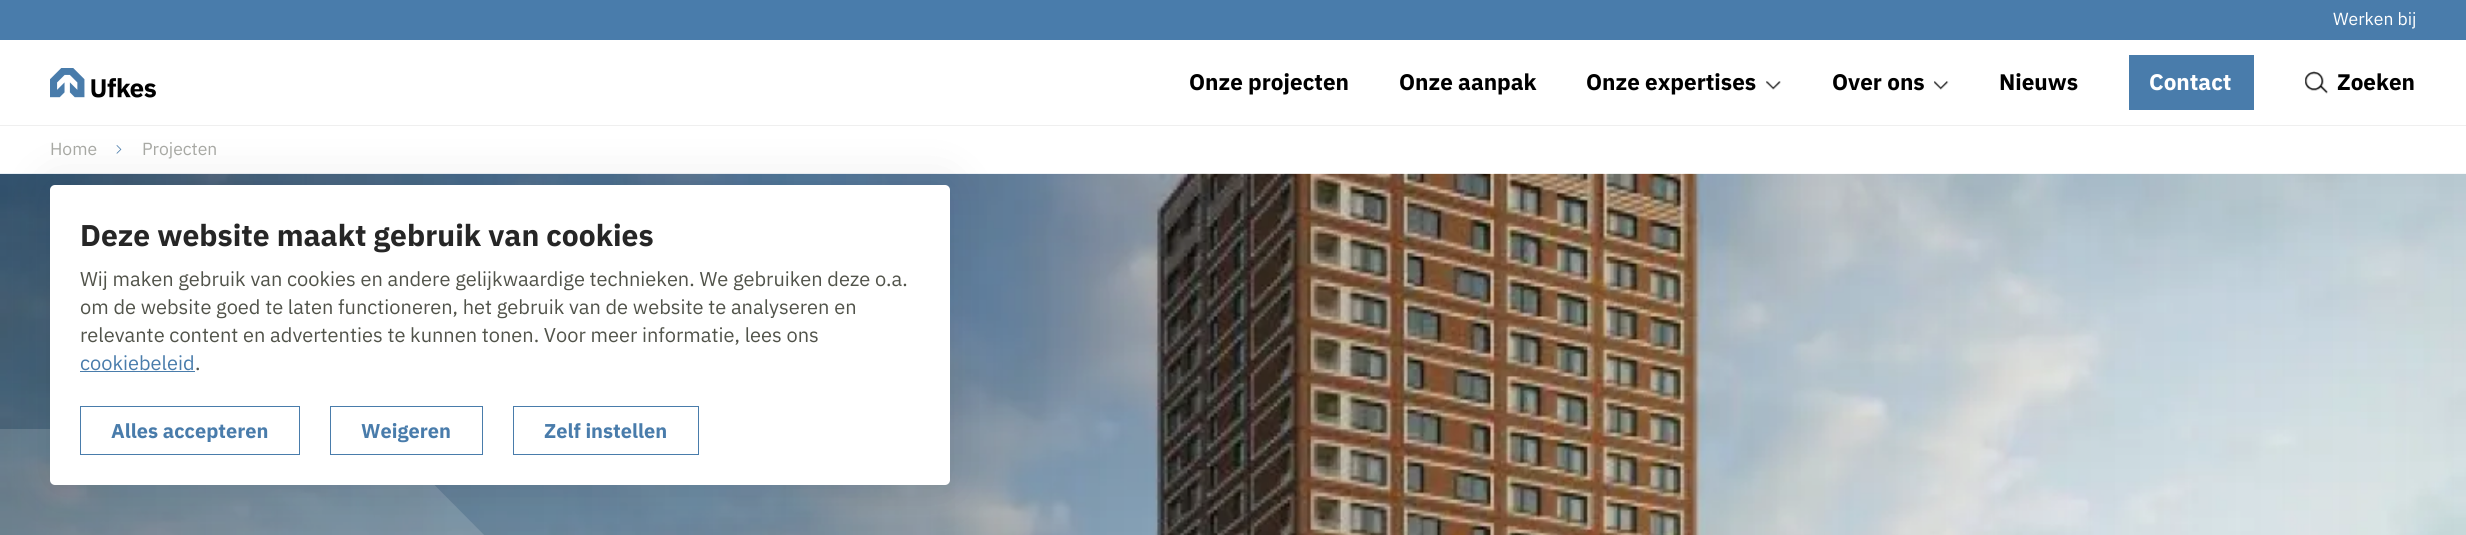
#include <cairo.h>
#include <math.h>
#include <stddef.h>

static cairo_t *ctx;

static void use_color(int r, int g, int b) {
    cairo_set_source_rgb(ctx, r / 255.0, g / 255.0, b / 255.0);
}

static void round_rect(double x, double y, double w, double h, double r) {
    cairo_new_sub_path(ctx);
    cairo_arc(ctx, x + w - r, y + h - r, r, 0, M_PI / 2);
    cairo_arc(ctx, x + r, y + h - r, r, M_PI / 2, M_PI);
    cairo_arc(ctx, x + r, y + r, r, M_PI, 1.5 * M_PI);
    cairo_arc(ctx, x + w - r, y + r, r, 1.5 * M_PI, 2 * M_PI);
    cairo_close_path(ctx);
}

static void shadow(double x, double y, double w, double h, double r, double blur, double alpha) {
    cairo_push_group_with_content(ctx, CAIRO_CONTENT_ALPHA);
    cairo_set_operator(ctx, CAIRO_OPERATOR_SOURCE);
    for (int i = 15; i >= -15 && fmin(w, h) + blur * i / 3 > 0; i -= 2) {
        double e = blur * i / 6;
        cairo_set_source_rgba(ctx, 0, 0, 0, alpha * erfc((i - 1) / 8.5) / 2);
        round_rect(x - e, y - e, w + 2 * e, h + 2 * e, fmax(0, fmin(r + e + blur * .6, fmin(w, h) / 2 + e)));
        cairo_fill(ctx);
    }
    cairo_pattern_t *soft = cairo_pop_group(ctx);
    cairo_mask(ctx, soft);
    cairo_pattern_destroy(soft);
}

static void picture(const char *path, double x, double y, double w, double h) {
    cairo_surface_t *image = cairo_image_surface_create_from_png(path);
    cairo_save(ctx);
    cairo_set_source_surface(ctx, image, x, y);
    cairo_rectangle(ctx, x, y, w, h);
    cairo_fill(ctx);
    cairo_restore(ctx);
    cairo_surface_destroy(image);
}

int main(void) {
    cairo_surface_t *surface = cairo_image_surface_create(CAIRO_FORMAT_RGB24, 2466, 535);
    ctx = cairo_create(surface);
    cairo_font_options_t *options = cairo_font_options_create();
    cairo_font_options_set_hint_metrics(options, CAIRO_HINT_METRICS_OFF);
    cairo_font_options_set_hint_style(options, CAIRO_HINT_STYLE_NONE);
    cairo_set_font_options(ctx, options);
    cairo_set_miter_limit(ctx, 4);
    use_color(255, 255, 255);
    cairo_paint(ctx);
    use_color(239, 239, 239);
    cairo_rectangle(ctx, 0, 125, 2466, 1);
    cairo_fill(ctx);
    use_color(73, 124, 171);
    cairo_rectangle(ctx, 0, 0, 2466, 40);
    cairo_fill(ctx);
    cairo_select_font_face(ctx, "IBM Plex Sans", CAIRO_FONT_SLANT_NORMAL, CAIRO_FONT_WEIGHT_NORMAL);
    cairo_set_font_size(ctx, 17.5);
    use_color(255, 255, 255);
    cairo_move_to(ctx, 2333, 25);
    cairo_show_text(ctx, "Werken bij");
    picture("img1.png", 50, 68, 106, 30);
    cairo_select_font_face(ctx, "IBM Plex Sans", CAIRO_FONT_SLANT_NORMAL, CAIRO_FONT_WEIGHT_BOLD);
    cairo_set_font_size(ctx, 22.5);
    use_color(0, 0, 0);
    cairo_move_to(ctx, 1189, 90);
    cairo_show_text(ctx, "Onze projecten");
    cairo_move_to(ctx, 1399, 90);
    cairo_show_text(ctx, "Onze aanpak");
    cairo_move_to(ctx, 1586, 90);
    cairo_show_text(ctx, "Onze expertises");
    picture("img2.png", 1766, 81, 15, 9);
    cairo_move_to(ctx, 1832, 90);
    cairo_show_text(ctx, "Over ons");
    picture("img3.png", 1934, 81, 15, 9);
    cairo_move_to(ctx, 1999, 90);
    cairo_show_text(ctx, "Nieuws");
    use_color(73, 124, 171);
    cairo_rectangle(ctx, 2129, 55, 125, 55);
    cairo_fill(ctx);
    use_color(255, 255, 255);
    cairo_move_to(ctx, 2149, 90);
    cairo_show_text(ctx, "Contact");
    picture("img4.png", 2305, 71, 23, 23);
    use_color(0, 0, 0);
    cairo_move_to(ctx, 2337, 90);
    cairo_show_text(ctx, "Zoeken");
    cairo_select_font_face(ctx, "IBM Plex Sans", CAIRO_FONT_SLANT_NORMAL, CAIRO_FONT_WEIGHT_NORMAL);
    cairo_set_font_size(ctx, 17.5);
    use_color(168, 169, 164);
    cairo_move_to(ctx, 50, 155);
    cairo_show_text(ctx, "Home");
    picture("img5.png", 116, 145, 6, 9);
    cairo_move_to(ctx, 142, 155);
    cairo_show_text(ctx, "Projecten");
    picture("img6.png", 0, 173, 2466, 362);
    cairo_set_source_rgba(ctx, 1, 1, 1, 0.15);
    cairo_new_path(ctx);
    cairo_move_to(ctx, 612, 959);
    cairo_line_to(ctx, 612, 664);
    cairo_line_to(ctx, 379, 429);
    cairo_line_to(ctx, 0, 429);
    cairo_line_to(ctx, 0, 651);
    cairo_line_to(ctx, 101, 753);
    cairo_line_to(ctx, 318, 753);
    cairo_line_to(ctx, 151, 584);
    cairo_line_to(ctx, 315, 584);
    cairo_line_to(ctx, 459, 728);
    cairo_line_to(ctx, 459, 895);
    cairo_line_to(ctx, 315, 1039);
    cairo_line_to(ctx, 151, 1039);
    cairo_line_to(ctx, 318, 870);
    cairo_line_to(ctx, 101, 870);
    cairo_line_to(ctx, 0, 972);
    cairo_line_to(ctx, 0, 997);
    cairo_line_to(ctx, 197, 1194);
    cairo_line_to(ctx, 379, 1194);
    cairo_close_path(ctx);
    cairo_fill(ctx);
    use_color(0, 0, 0);
    shadow(50, 185, 900, 300, 5, 25, 0.1);
    use_color(255, 255, 255);
    round_rect(50, 185, 900, 300, 5);
    cairo_fill(ctx);
    cairo_select_font_face(ctx, "IBM Plex Sans", CAIRO_FONT_SLANT_NORMAL, CAIRO_FONT_WEIGHT_BOLD);
    cairo_set_font_size(ctx, 30);
    use_color(38, 38, 38);
    cairo_move_to(ctx, 80, 246);
    cairo_show_text(ctx, "Deze website maakt gebruik van cookies");
    cairo_select_font_face(ctx, "IBM Plex Sans", CAIRO_FONT_SLANT_NORMAL, CAIRO_FONT_WEIGHT_NORMAL);
    cairo_set_font_size(ctx, 20);
    use_color(81, 83, 74);
    cairo_move_to(ctx, 80, 286);
    cairo_show_text(ctx, "Wij maken gebruik van cookies en andere gelijkwaardige technieken. We gebruiken deze o.a.");
    cairo_move_to(ctx, 80, 314);
    cairo_show_text(ctx, "om de website goed te laten functioneren, het gebruik van de website te analyseren en");
    cairo_move_to(ctx, 80, 342);
    cairo_show_text(ctx, "relevante content en advertenties te kunnen tonen. Voor meer informatie, lees ons");
    use_color(73, 124, 171);
    cairo_move_to(ctx, 80, 370);
    cairo_show_text(ctx, "cookiebeleid");
    cairo_rectangle(ctx, 80, 371, 115, 1);
    cairo_fill(ctx);
    use_color(81, 83, 74);
    cairo_move_to(ctx, 195, 370);
    cairo_show_text(ctx, ".");
    cairo_rectangle(ctx, 80.5, 406.5, 219, 48);
    use_color(73, 124, 171);
    cairo_set_line_width(ctx, 1);
    cairo_stroke(ctx);
    cairo_select_font_face(ctx, "IBM Plex Sans", CAIRO_FONT_SLANT_NORMAL, CAIRO_FONT_WEIGHT_BOLD);
    cairo_move_to(ctx, 111, 438);
    cairo_show_text(ctx, "Alles accepteren");
    cairo_rectangle(ctx, 330.5, 406.5, 152, 48);
    cairo_stroke(ctx);
    cairo_move_to(ctx, 361, 438);
    cairo_show_text(ctx, "Weigeren");
    cairo_rectangle(ctx, 513.5, 406.5, 185, 48);
    cairo_stroke(ctx);
    cairo_move_to(ctx, 544, 438);
    cairo_show_text(ctx, "Zelf instellen");
    cairo_surface_write_to_png(surface, "result.png");
    cairo_font_options_destroy(options);
    cairo_destroy(ctx);
    cairo_surface_destroy(surface);
    return 0;
}
